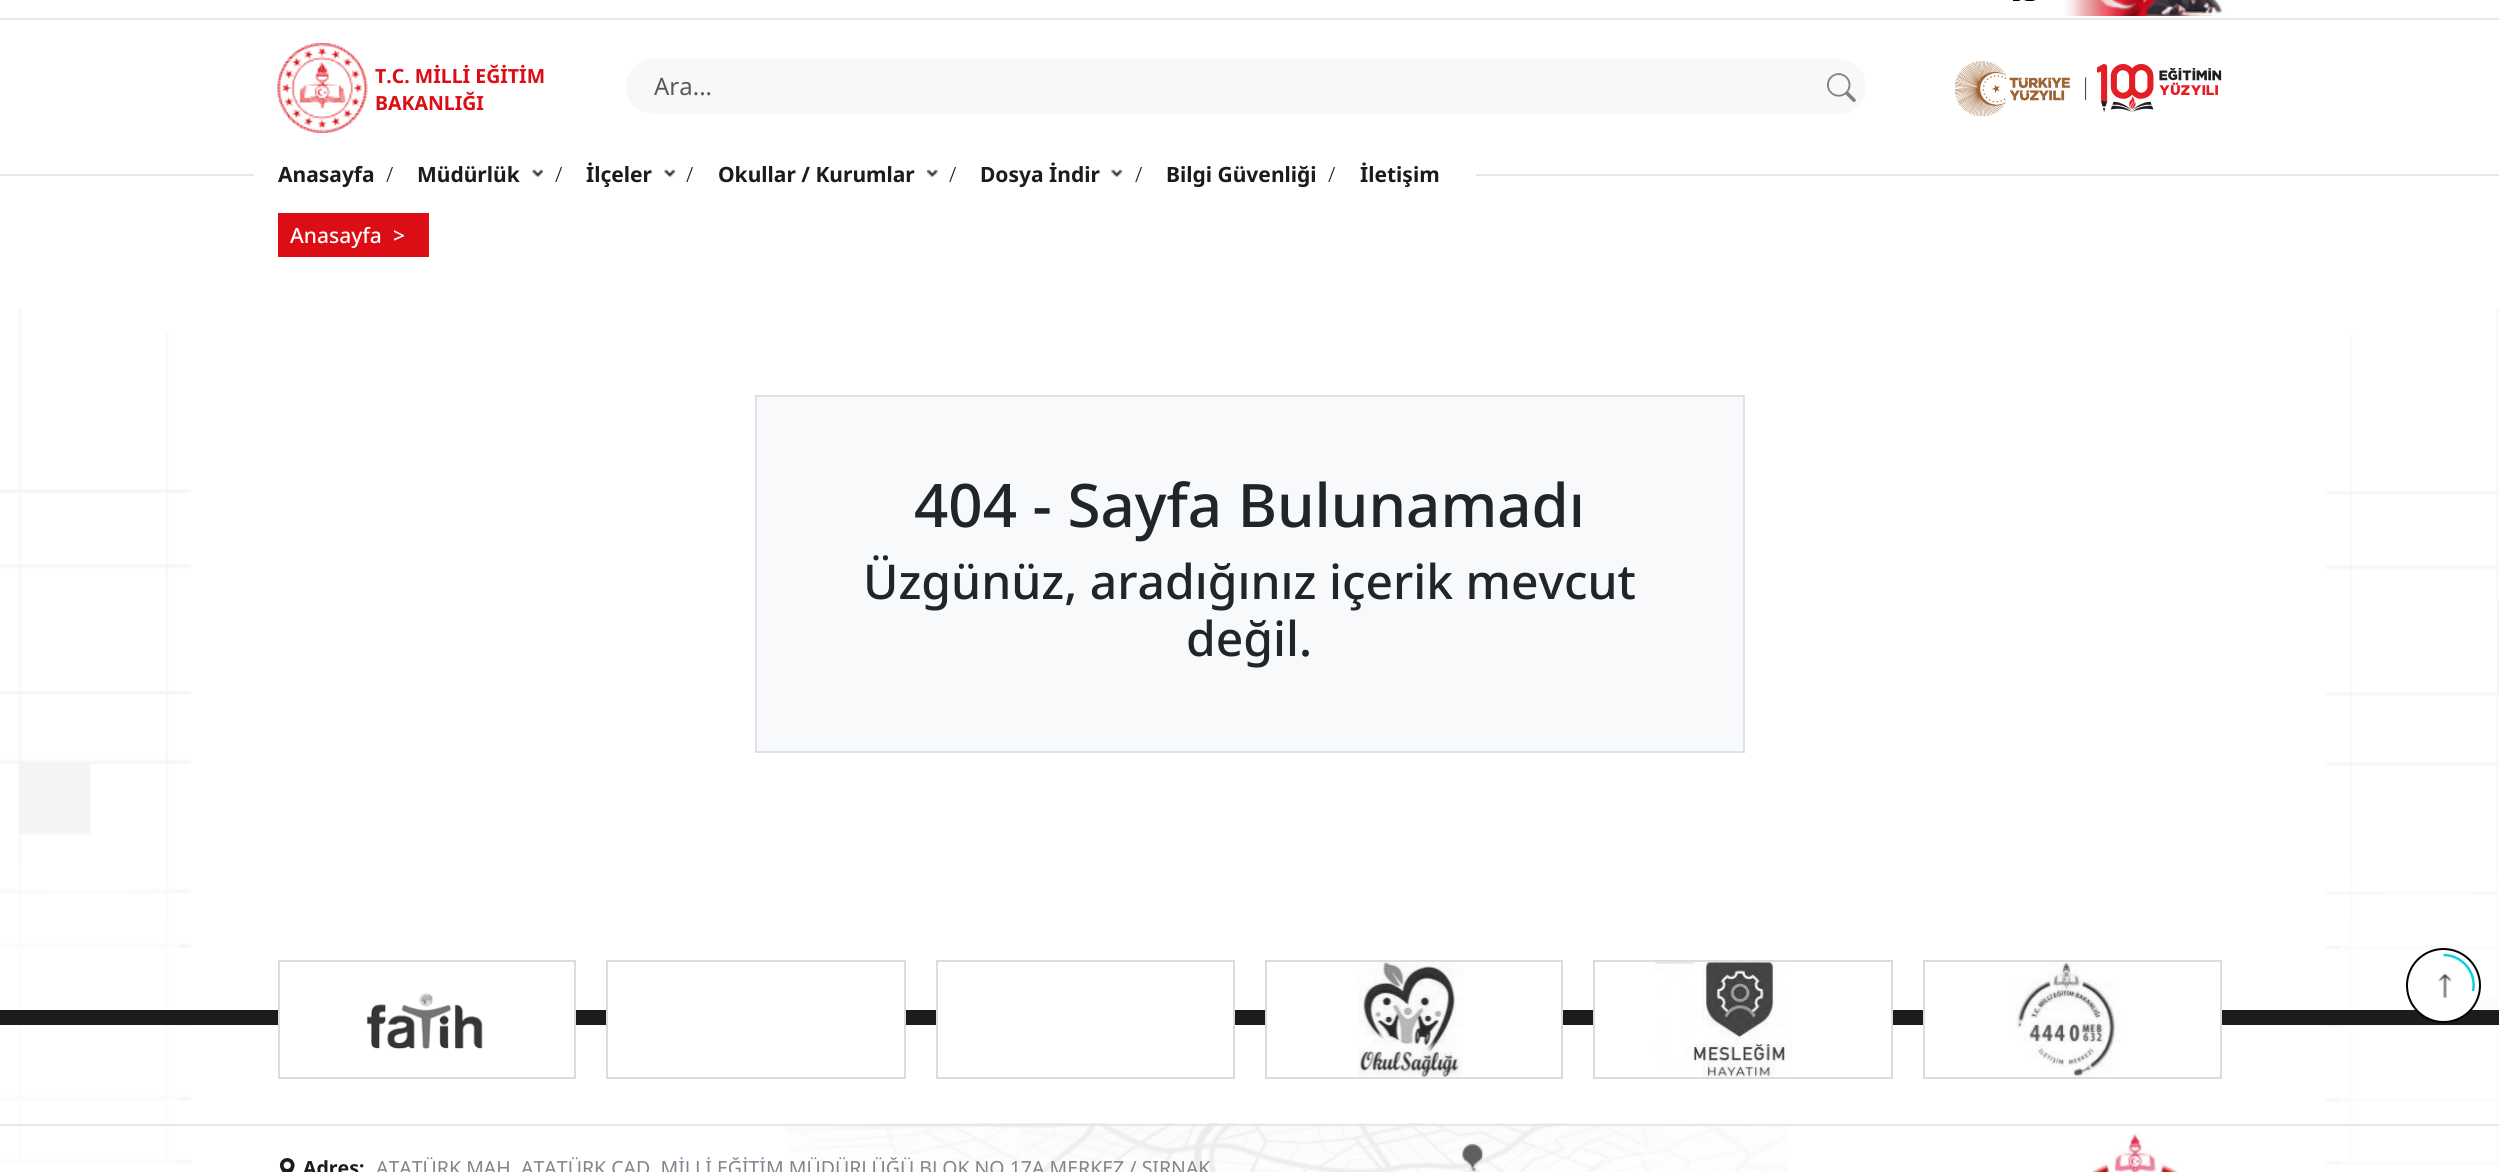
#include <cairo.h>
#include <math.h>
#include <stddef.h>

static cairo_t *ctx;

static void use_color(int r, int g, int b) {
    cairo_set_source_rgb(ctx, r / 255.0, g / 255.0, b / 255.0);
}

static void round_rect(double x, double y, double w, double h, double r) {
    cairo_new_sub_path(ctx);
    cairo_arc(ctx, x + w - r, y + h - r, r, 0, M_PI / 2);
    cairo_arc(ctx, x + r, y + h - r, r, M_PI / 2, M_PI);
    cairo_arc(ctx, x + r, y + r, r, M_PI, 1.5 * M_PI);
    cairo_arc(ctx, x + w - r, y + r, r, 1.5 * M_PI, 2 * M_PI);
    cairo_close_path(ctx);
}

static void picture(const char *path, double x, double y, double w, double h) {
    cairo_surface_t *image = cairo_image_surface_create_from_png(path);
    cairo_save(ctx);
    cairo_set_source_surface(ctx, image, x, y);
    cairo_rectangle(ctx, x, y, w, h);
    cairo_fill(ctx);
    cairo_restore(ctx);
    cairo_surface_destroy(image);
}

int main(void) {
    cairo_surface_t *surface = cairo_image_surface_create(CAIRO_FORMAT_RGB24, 2499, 1172);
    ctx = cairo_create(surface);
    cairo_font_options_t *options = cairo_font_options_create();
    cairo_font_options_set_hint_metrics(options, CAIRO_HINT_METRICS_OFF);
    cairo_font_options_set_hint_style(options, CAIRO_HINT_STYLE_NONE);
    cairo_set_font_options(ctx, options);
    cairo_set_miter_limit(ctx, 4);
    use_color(255, 255, 255);
    cairo_paint(ctx);
    picture("img1.png", 0, 307, 2499, 858);
    use_color(229, 231, 235);
    cairo_rectangle(ctx, 0, 18, 2499, 2);
    cairo_fill(ctx);
    picture("img2.png", 2013, 0, 23, 1);
    picture("img3.png", 2064, 0, 162, 16);
    picture("img4.png", 277, 43, 91, 90);
    cairo_select_font_face(ctx, "Noto Sans", CAIRO_FONT_SLANT_NORMAL, CAIRO_FONT_WEIGHT_BOLD);
    cairo_set_font_size(ctx, 19.5);
    use_color(220, 13, 21);
    cairo_move_to(ctx, 375, 83);
    cairo_show_text(ctx, "T.C. MİLLİ EĞİTİM");
    cairo_move_to(ctx, 375, 110);
    cairo_show_text(ctx, "BAKANLIĞI");
    use_color(248, 248, 248);
    round_rect(626, 59, 1240, 55, 27.5);
    cairo_fill(ctx);
    cairo_select_font_face(ctx, "Noto Sans", CAIRO_FONT_SLANT_NORMAL, CAIRO_FONT_WEIGHT_NORMAL);
    cairo_set_font_size(ctx, 24);
    use_color(87, 90, 93);
    cairo_move_to(ctx, 654, 95);
    cairo_show_text(ctx, "Ara...");
    picture("img5.png", 1827, 73, 29, 29);
    picture("img6.png", 1955, 61, 267, 56);
    use_color(229, 231, 235);
    cairo_rectangle(ctx, 0, 174, 2499, 2);
    cairo_fill(ctx);
    use_color(255, 255, 255);
    cairo_rectangle(ctx, 254, 174, 1222, 2);
    cairo_fill(ctx);
    cairo_select_font_face(ctx, "Noto Sans", CAIRO_FONT_SLANT_NORMAL, CAIRO_FONT_WEIGHT_BOLD);
    cairo_set_font_size(ctx, 21);
    use_color(28, 28, 28);
    cairo_move_to(ctx, 278, 182);
    cairo_show_text(ctx, "Anasayfa");
    cairo_select_font_face(ctx, "Noto Sans Light", CAIRO_FONT_SLANT_NORMAL, CAIRO_FONT_WEIGHT_NORMAL);
    cairo_move_to(ctx, 386, 182);
    cairo_show_text(ctx, "/");
    cairo_select_font_face(ctx, "Noto Sans", CAIRO_FONT_SLANT_NORMAL, CAIRO_FONT_WEIGHT_BOLD);
    cairo_move_to(ctx, 417, 182);
    cairo_show_text(ctx, "Müdürlük");
    picture("img7.png", 532, 169, 11, 8);
    cairo_select_font_face(ctx, "Noto Sans Light", CAIRO_FONT_SLANT_NORMAL, CAIRO_FONT_WEIGHT_NORMAL);
    cairo_move_to(ctx, 555, 182);
    cairo_show_text(ctx, "/");
    cairo_select_font_face(ctx, "Noto Sans", CAIRO_FONT_SLANT_NORMAL, CAIRO_FONT_WEIGHT_BOLD);
    cairo_move_to(ctx, 586, 182);
    cairo_show_text(ctx, "İlçeler");
    picture("img7.png", 664, 169, 11, 8);
    cairo_select_font_face(ctx, "Noto Sans Light", CAIRO_FONT_SLANT_NORMAL, CAIRO_FONT_WEIGHT_NORMAL);
    cairo_move_to(ctx, 686, 182);
    cairo_show_text(ctx, "/");
    cairo_select_font_face(ctx, "Noto Sans", CAIRO_FONT_SLANT_NORMAL, CAIRO_FONT_WEIGHT_BOLD);
    cairo_move_to(ctx, 718, 182);
    cairo_show_text(ctx, "Okullar / Kurumlar");
    picture("img8.png", 927, 169, 11, 8);
    cairo_select_font_face(ctx, "Noto Sans Light", CAIRO_FONT_SLANT_NORMAL, CAIRO_FONT_WEIGHT_NORMAL);
    cairo_move_to(ctx, 949, 182);
    cairo_show_text(ctx, "/");
    cairo_select_font_face(ctx, "Noto Sans", CAIRO_FONT_SLANT_NORMAL, CAIRO_FONT_WEIGHT_BOLD);
    cairo_move_to(ctx, 980, 182);
    cairo_show_text(ctx, "Dosya İndir");
    picture("img9.png", 1111, 169, 11, 8);
    cairo_select_font_face(ctx, "Noto Sans Light", CAIRO_FONT_SLANT_NORMAL, CAIRO_FONT_WEIGHT_NORMAL);
    cairo_move_to(ctx, 1135, 182);
    cairo_show_text(ctx, "/");
    cairo_select_font_face(ctx, "Noto Sans", CAIRO_FONT_SLANT_NORMAL, CAIRO_FONT_WEIGHT_BOLD);
    cairo_move_to(ctx, 1166, 182);
    cairo_show_text(ctx, "Bilgi Güvenliği");
    cairo_select_font_face(ctx, "Noto Sans Light", CAIRO_FONT_SLANT_NORMAL, CAIRO_FONT_WEIGHT_NORMAL);
    cairo_move_to(ctx, 1328, 182);
    cairo_show_text(ctx, "/");
    cairo_select_font_face(ctx, "Noto Sans", CAIRO_FONT_SLANT_NORMAL, CAIRO_FONT_WEIGHT_BOLD);
    cairo_move_to(ctx, 1360, 182);
    cairo_show_text(ctx, "İletişim");
    use_color(220, 13, 21);
    cairo_rectangle(ctx, 278, 213, 151, 44);
    cairo_fill(ctx);
    cairo_select_font_face(ctx, "Noto Sans Medium", CAIRO_FONT_SLANT_NORMAL, CAIRO_FONT_WEIGHT_NORMAL);
    use_color(255, 255, 255);
    cairo_move_to(ctx, 290, 243);
    cairo_show_text(ctx, "Anasayfa");
    cairo_move_to(ctx, 393, 243);
    cairo_show_text(ctx, ">");
    use_color(248, 249, 250);
    cairo_rectangle(ctx, 756, 396, 988, 356);
    cairo_fill_preserve(ctx);
    use_color(222, 226, 230);
    cairo_stroke(ctx);
    cairo_set_font_size(ctx, 60);
    use_color(33, 37, 41);
    cairo_move_to(ctx, 914, 527);
    cairo_show_text(ctx, "404 - Sayfa Bulunamadı");
    cairo_set_font_size(ctx, 48);
    cairo_move_to(ctx, 863, 599);
    cairo_show_text(ctx, "Üzgünüz, aradığınız içerik mevcut");
    cairo_move_to(ctx, 1186, 656);
    cairo_show_text(ctx, "değil.");
    use_color(28, 28, 28);
    cairo_rectangle(ctx, 0, 1010, 2499, 15);
    cairo_fill(ctx);
    use_color(255, 255, 255);
    cairo_arc(ctx, 2443.5, 985.5, 36.5, 0, 2 * M_PI);
    cairo_fill_preserve(ctx);
    use_color(0, 0, 0);
    cairo_stroke(ctx);
    cairo_save(ctx);
    cairo_rectangle(ctx, 2412, 954, 63, 63);
    cairo_clip(ctx);
    cairo_new_path(ctx);
    cairo_move_to(ctx, 2443.5, 955);
    cairo_curve_to(ctx, 2462.5, 955, 2477, 973, 2473, 991);
    use_color(16, 205, 230);
    cairo_set_line_width(ctx, 2.5);
    cairo_stroke(ctx);
    cairo_restore(ctx);
    picture("img10.png", 2438, 973, 14, 25);
    use_color(255, 255, 255);
    cairo_rectangle(ctx, 280, 1010, 294, 15);
    cairo_fill(ctx);
    cairo_rectangle(ctx, 279, 961, 296, 117);
    use_color(220, 220, 220);
    cairo_stroke(ctx);
    picture("img11.png", 366, 993, 117, 58);
    use_color(255, 255, 255);
    cairo_rectangle(ctx, 608, 1010, 296, 15);
    cairo_fill(ctx);
    cairo_rectangle(ctx, 607, 961, 298, 117);
    use_color(220, 220, 220);
    cairo_stroke(ctx);
    use_color(255, 255, 255);
    cairo_rectangle(ctx, 938, 1010, 295, 15);
    cairo_fill(ctx);
    cairo_rectangle(ctx, 937, 961, 297, 117);
    use_color(220, 220, 220);
    cairo_stroke(ctx);
    use_color(255, 255, 255);
    cairo_rectangle(ctx, 1267, 1010, 294, 15);
    cairo_fill(ctx);
    cairo_rectangle(ctx, 1266, 961, 296, 117);
    use_color(220, 220, 220);
    cairo_stroke(ctx);
    picture("img12.png", 1358, 962, 105, 115);
    use_color(255, 255, 255);
    cairo_rectangle(ctx, 1595, 1010, 296, 15);
    cairo_fill(ctx);
    cairo_rectangle(ctx, 1594, 961, 298, 117);
    use_color(220, 220, 220);
    cairo_stroke(ctx);
    picture("img13.png", 1653, 962, 139, 115);
    use_color(255, 255, 255);
    cairo_rectangle(ctx, 1925, 1010, 295, 15);
    cairo_fill(ctx);
    cairo_rectangle(ctx, 1924, 961, 297, 117);
    use_color(220, 220, 220);
    cairo_stroke(ctx);
    picture("img14.png", 2015, 962, 106, 114);
    picture("img15.png", 787, 1123, 1000, 49);
    use_color(229, 231, 235);
    cairo_rectangle(ctx, 0, 1124, 2499, 2);
    cairo_fill(ctx);
    picture("img16.png", 279, 1158, 16, 14);
    cairo_select_font_face(ctx, "Noto Sans", CAIRO_FONT_SLANT_NORMAL, CAIRO_FONT_WEIGHT_BOLD);
    cairo_set_font_size(ctx, 19.5);
    use_color(28, 28, 28);
    cairo_move_to(ctx, 303, 1175);
    cairo_show_text(ctx, "Adres:");
    cairo_select_font_face(ctx, "Noto Sans", CAIRO_FONT_SLANT_NORMAL, CAIRO_FONT_WEIGHT_NORMAL);
    use_color(127, 134, 144);
    cairo_move_to(ctx, 376, 1175);
    cairo_show_text(ctx, "ATATÜRK MAH. ATATÜRK CAD. MİLLİ EĞİTİM MÜDÜRLÜĞÜ BLOK NO 17A MERKEZ / ŞIRNAK");
    picture("img17.png", 2091, 1132, 89, 40);
    cairo_surface_write_to_png(surface, "result.png");
    cairo_font_options_destroy(options);
    cairo_destroy(ctx);
    cairo_surface_destroy(surface);
    return 0;
}
